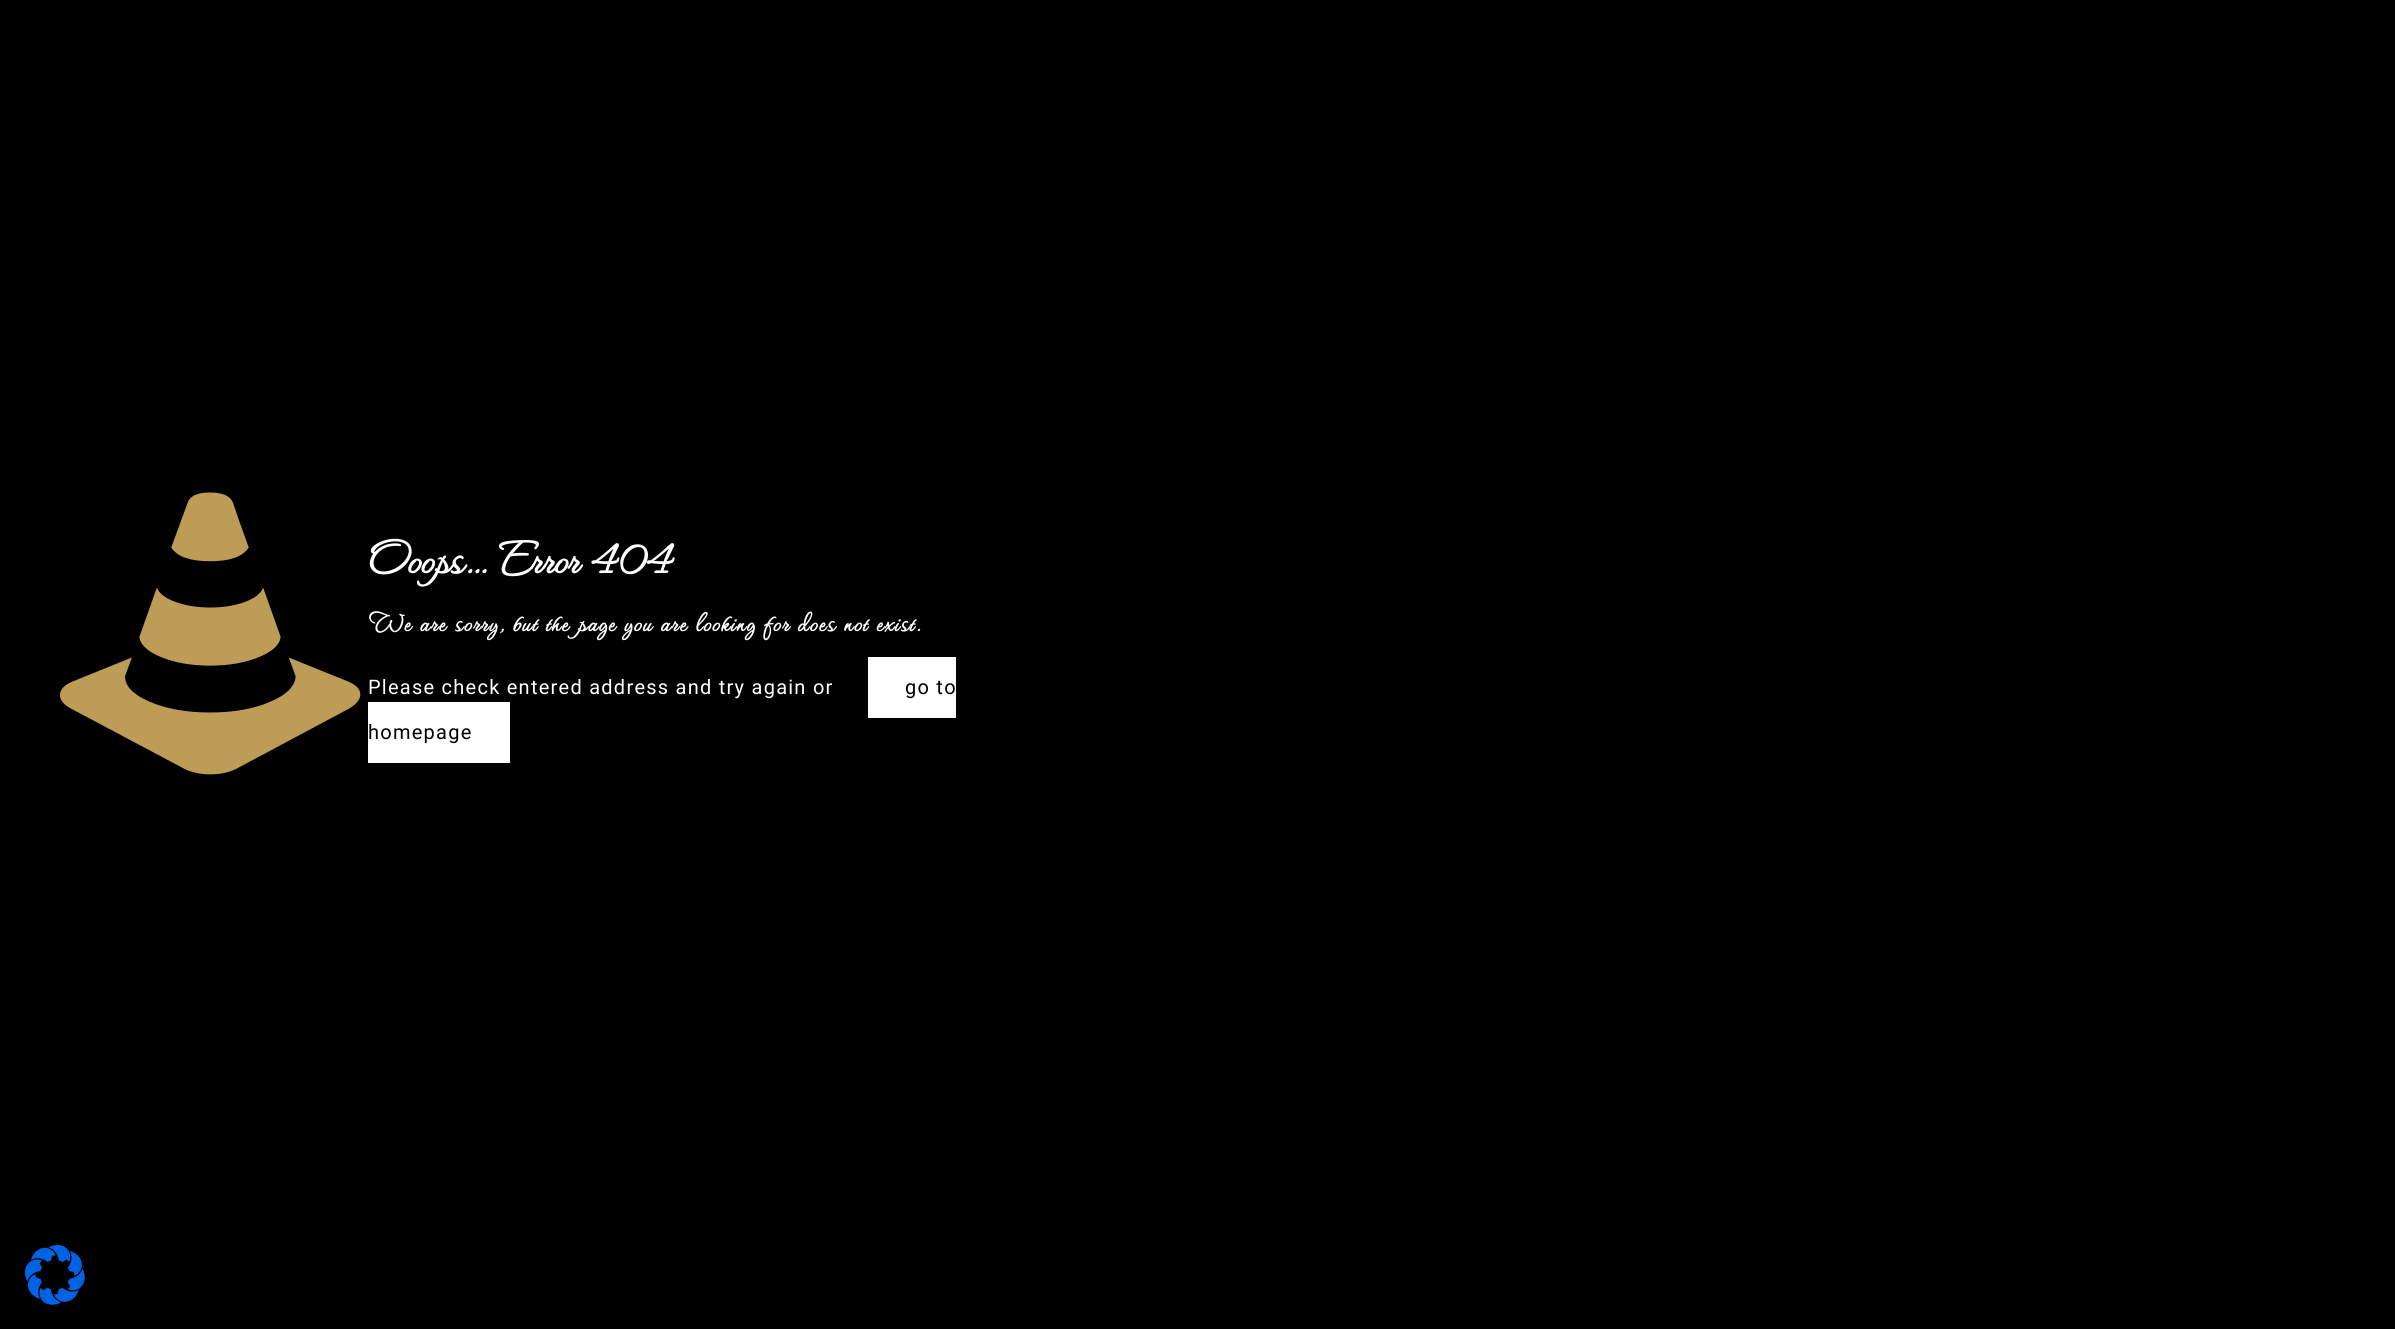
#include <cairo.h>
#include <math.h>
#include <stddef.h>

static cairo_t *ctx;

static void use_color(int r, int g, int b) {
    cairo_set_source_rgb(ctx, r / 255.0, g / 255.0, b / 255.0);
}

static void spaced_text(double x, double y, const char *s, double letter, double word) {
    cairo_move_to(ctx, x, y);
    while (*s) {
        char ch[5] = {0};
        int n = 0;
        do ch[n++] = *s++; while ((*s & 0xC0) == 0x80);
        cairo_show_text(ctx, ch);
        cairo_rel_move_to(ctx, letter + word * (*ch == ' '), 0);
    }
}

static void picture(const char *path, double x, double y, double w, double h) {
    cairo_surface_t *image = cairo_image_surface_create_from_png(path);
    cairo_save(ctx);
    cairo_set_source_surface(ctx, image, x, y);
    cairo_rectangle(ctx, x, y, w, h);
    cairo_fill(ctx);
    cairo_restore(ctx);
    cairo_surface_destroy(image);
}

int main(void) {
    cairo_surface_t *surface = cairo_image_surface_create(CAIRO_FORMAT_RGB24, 2395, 1329);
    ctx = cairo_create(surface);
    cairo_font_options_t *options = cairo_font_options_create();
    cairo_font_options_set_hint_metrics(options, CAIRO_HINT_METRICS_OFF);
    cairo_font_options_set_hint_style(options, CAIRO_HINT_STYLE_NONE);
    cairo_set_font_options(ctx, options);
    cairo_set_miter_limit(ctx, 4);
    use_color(0, 0, 0);
    cairo_paint(ctx);
    picture("img1.png", 60, 492, 301, 283);
    cairo_select_font_face(ctx, "Waterfall", CAIRO_FONT_SLANT_NORMAL, CAIRO_FONT_WEIGHT_BOLD);
    cairo_set_font_size(ctx, 56.25);
    use_color(255, 255, 255);
    cairo_move_to(ctx, 368, 573);
    cairo_show_text(ctx, "Ooops... Error 404");
    cairo_set_font_size(ctx, 32.5);
    spaced_text(368, 631, "We are sorry, but the page you are looking for does not exist.", 1.25, 0);
    cairo_select_font_face(ctx, "Roboto", CAIRO_FONT_SLANT_NORMAL, CAIRO_FONT_WEIGHT_NORMAL);
    cairo_set_font_size(ctx, 20);
    spaced_text(368, 694, "Please check entered address and try again or", 1.25, 0);
    cairo_rectangle(ctx, 868, 657, 88, 61);
    cairo_fill(ctx);
    use_color(0, 0, 0);
    spaced_text(905, 694, "go to", 1.25, 0);
    use_color(255, 255, 255);
    cairo_rectangle(ctx, 368, 702, 142, 61);
    cairo_fill(ctx);
    use_color(0, 0, 0);
    spaced_text(368, 739, "homepage", 1.25, 0);
    picture("img2.png", 25, 1245, 60, 60);
    cairo_surface_write_to_png(surface, "result.png");
    cairo_font_options_destroy(options);
    cairo_destroy(ctx);
    cairo_surface_destroy(surface);
    return 0;
}
